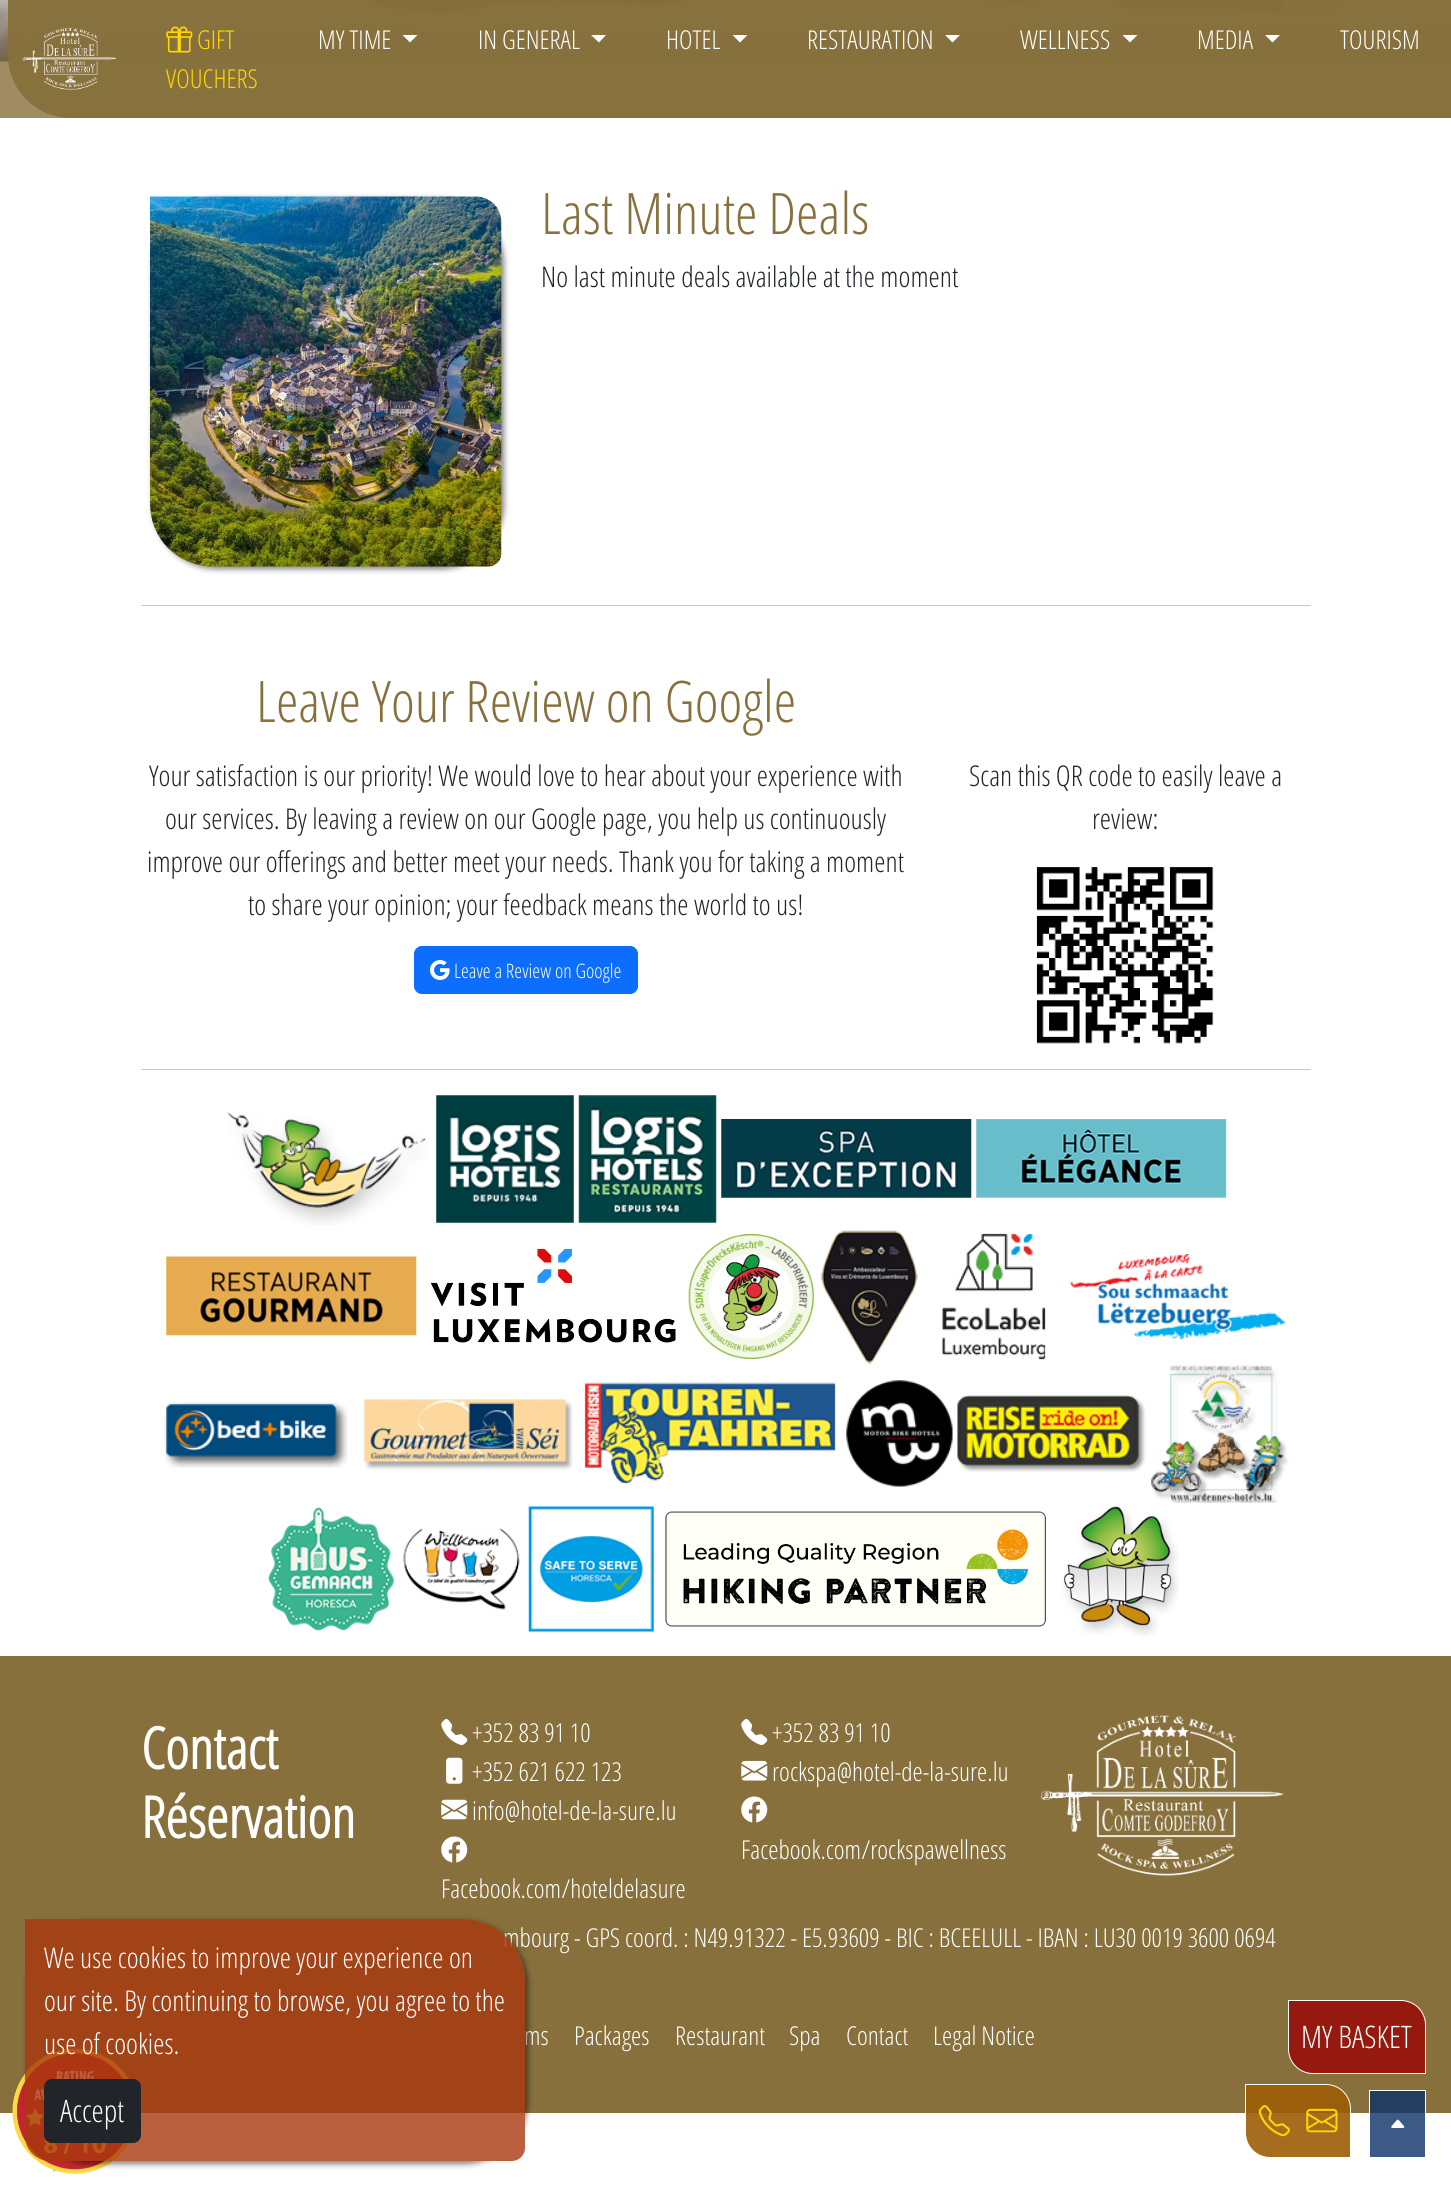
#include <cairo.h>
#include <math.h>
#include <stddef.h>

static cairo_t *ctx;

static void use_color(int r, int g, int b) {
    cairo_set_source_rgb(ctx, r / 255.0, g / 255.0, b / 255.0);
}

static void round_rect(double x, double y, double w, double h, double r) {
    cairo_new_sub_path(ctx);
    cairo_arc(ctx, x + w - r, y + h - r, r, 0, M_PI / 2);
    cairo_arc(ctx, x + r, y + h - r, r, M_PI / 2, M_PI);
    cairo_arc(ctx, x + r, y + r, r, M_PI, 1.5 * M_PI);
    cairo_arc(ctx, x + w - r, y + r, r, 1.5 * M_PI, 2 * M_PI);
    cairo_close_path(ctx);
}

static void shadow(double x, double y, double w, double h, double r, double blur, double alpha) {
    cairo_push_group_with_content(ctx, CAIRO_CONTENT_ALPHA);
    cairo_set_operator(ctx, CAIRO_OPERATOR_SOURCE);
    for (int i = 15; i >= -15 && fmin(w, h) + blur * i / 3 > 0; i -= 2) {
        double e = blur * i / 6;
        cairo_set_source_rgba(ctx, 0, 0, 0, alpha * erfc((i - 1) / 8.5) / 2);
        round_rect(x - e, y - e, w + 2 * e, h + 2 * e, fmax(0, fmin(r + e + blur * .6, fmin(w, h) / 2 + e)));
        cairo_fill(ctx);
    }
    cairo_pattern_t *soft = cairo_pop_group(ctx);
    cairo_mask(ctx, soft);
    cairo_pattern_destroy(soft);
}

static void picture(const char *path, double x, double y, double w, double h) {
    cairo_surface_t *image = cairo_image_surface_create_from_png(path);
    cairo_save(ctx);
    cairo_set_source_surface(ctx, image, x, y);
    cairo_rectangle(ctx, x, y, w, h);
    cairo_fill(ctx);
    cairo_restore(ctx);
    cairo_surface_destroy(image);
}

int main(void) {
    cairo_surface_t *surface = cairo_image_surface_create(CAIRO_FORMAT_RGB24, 1451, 2186);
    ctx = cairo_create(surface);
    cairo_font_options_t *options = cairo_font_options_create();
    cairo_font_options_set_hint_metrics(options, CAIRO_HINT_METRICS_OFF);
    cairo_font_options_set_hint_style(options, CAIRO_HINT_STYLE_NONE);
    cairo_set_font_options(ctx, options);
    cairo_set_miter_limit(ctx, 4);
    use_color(255, 255, 255);
    cairo_paint(ctx);
    use_color(61, 89, 133);
    cairo_rectangle(ctx, 1370, 2113, 55, 44);
    cairo_fill(ctx);
    picture("img1.png", 0, 0, 1451, 62);
    cairo_set_source_rgba(ctx, 0.529, 0.439, 0.235, 0.8);
    cairo_rectangle(ctx, 0, 61, 1451, 57);
    cairo_fill(ctx);
    cairo_set_source_rgba(ctx, 0.529, 0.439, 0.235, 0.97);
    cairo_new_path(ctx);
    cairo_move_to(ctx, 8, 0);
    cairo_line_to(ctx, 1451, 0);
    cairo_line_to(ctx, 1451, 118);
    cairo_line_to(ctx, 71, 118);
    cairo_curve_to(ctx, 36, 118, 8, 90, 8, 55);
    cairo_close_path(ctx);
    cairo_fill(ctx);
    picture("img2.png", 22, 27, 95, 63);
    picture("img3.png", 166, 26, 27, 27);
    cairo_select_font_face(ctx, "Open Sans Condensed Light", CAIRO_FONT_SLANT_NORMAL, CAIRO_FONT_WEIGHT_NORMAL);
    cairo_set_font_size(ctx, 26);
    use_color(255, 215, 0);
    cairo_move_to(ctx, 197, 49);
    cairo_show_text(ctx, "GIFT");
    cairo_move_to(ctx, 166, 88);
    cairo_show_text(ctx, "VOUCHERS");
    use_color(255, 255, 255);
    cairo_move_to(ctx, 318, 49);
    cairo_show_text(ctx, "MY TIME");
    cairo_new_path(ctx);
    cairo_move_to(ctx, 402.5, 35);
    cairo_line_to(ctx, 417.5, 35);
    cairo_line_to(ctx, 410, 42.5);
    cairo_close_path(ctx);
    cairo_fill(ctx);
    cairo_move_to(ctx, 478, 49);
    cairo_show_text(ctx, "IN GENERAL");
    cairo_new_path(ctx);
    cairo_move_to(ctx, 591, 35);
    cairo_line_to(ctx, 606, 35);
    cairo_line_to(ctx, 599, 42.5);
    cairo_close_path(ctx);
    cairo_fill(ctx);
    cairo_move_to(ctx, 666, 49);
    cairo_show_text(ctx, "HOTEL");
    cairo_new_path(ctx);
    cairo_move_to(ctx, 732.5, 35);
    cairo_line_to(ctx, 747.5, 35);
    cairo_line_to(ctx, 740, 42.5);
    cairo_close_path(ctx);
    cairo_fill(ctx);
    cairo_move_to(ctx, 807, 49);
    cairo_show_text(ctx, "RESTAURATION");
    cairo_new_path(ctx);
    cairo_move_to(ctx, 945, 35);
    cairo_line_to(ctx, 960, 35);
    cairo_line_to(ctx, 952.5, 42.5);
    cairo_close_path(ctx);
    cairo_fill(ctx);
    cairo_move_to(ctx, 1020, 49);
    cairo_show_text(ctx, "WELLNESS");
    cairo_new_path(ctx);
    cairo_move_to(ctx, 1122.5, 35);
    cairo_line_to(ctx, 1137.5, 35);
    cairo_line_to(ctx, 1130, 42.5);
    cairo_close_path(ctx);
    cairo_fill(ctx);
    cairo_move_to(ctx, 1197, 49);
    cairo_show_text(ctx, "MEDIA");
    cairo_new_path(ctx);
    cairo_move_to(ctx, 1265, 35);
    cairo_line_to(ctx, 1280, 35);
    cairo_line_to(ctx, 1272.5, 42.5);
    cairo_close_path(ctx);
    cairo_fill(ctx);
    cairo_move_to(ctx, 1340, 49);
    cairo_show_text(ctx, "TOURISM");
    use_color(0, 0, 0);
    shadow(153, 199, 351, 370, 63, 3, 0.5);
    picture("img4.png", 150, 196, 352, 371);
    cairo_set_font_size(ctx, 57.25);
    use_color(135, 112, 60);
    cairo_move_to(ctx, 541, 234);
    cairo_show_text(ctx, "Last Minute Deals");
    cairo_set_font_size(ctx, 28.6);
    use_color(33, 37, 41);
    cairo_move_to(ctx, 541, 287);
    cairo_show_text(ctx, "No last minute deals available at the moment");
    use_color(200, 201, 202);
    cairo_rectangle(ctx, 141, 605, 1170, 1);
    cairo_fill(ctx);
    cairo_set_font_size(ctx, 57.25);
    use_color(135, 112, 60);
    cairo_move_to(ctx, 256, 722);
    cairo_show_text(ctx, "Leave Your Review on Google");
    cairo_set_font_size(ctx, 28.6);
    use_color(33, 37, 41);
    cairo_move_to(ctx, 149, 786);
    cairo_show_text(ctx, "Your satisfaction is our priority! We would love to hear about your experience with");
    cairo_move_to(ctx, 165, 829);
    cairo_show_text(ctx, "our services. By leaving a review on our Google page, you help us continuously");
    cairo_move_to(ctx, 147, 872);
    cairo_show_text(ctx, "improve our offerings and better meet your needs. Thank you for taking a moment");
    cairo_move_to(ctx, 248, 915);
    cairo_show_text(ctx, "to share your opinion; your feedback means the world to us!");
    use_color(13, 110, 253);
    round_rect(414.5, 946.5, 223, 47, 7.5);
    cairo_fill_preserve(ctx);
    cairo_set_line_width(ctx, 1);
    cairo_stroke(ctx);
    picture("img5.png", 430, 960, 20, 20);
    cairo_set_font_size(ctx, 20);
    use_color(255, 255, 255);
    cairo_move_to(ctx, 454, 978);
    cairo_show_text(ctx, "Leave a Review on Google");
    cairo_set_font_size(ctx, 28.6);
    use_color(33, 37, 41);
    cairo_move_to(ctx, 969, 786);
    cairo_show_text(ctx, "Scan this QR code to easily leave a");
    cairo_move_to(ctx, 1092, 829);
    cairo_show_text(ctx, "review:");
    picture("img6.png", 1036, 867, 178, 177);
    use_color(200, 201, 202);
    cairo_rectangle(ctx, 141, 1069, 1170, 1);
    cairo_fill(ctx);
    picture("img7.png", 227, 1112, 199, 113);
    picture("img8.png", 436, 1095, 138, 128);
    picture("img9.png", 578, 1095, 139, 128);
    picture("img10.png", 721, 1119, 251, 79);
    picture("img11.png", 976, 1119, 251, 79);
    picture("img12.png", 166, 1256, 251, 80);
    picture("img13.png", 431, 1248, 245, 95);
    picture("img14.png", 688, 1234, 126, 125);
    picture("img15.png", 820, 1230, 98, 135);
    picture("img16.png", 942, 1233, 104, 127);
    picture("img17.png", 1069, 1253, 216, 87);
    picture("img18.png", 164, 1402, 184, 66);
    picture("img19.png", 363, 1399, 210, 71);
    picture("img20.png", 584, 1382, 252, 103);
    picture("img21.png", 846, 1380, 107, 107);
    picture("img22.png", 957, 1395, 189, 77);
    picture("img23.png", 1151, 1365, 138, 138);
    picture("img24.png", 268, 1507, 126, 124);
    picture("img25.png", 403, 1528, 117, 82);
    picture("img26.png", 528, 1506, 126, 126);
    picture("img27.png", 665, 1511, 381, 116);
    picture("img28.png", 1062, 1506, 117, 130);
    use_color(135, 112, 60);
    cairo_rectangle(ctx, 0, 1656, 1451, 457);
    cairo_fill(ctx);
    use_color(37, 61, 94);
    cairo_rectangle(ctx, 1370, 2091, 55, 22);
    cairo_fill(ctx);
    cairo_select_font_face(ctx, "Open Sans Condensed", CAIRO_FONT_SLANT_NORMAL, CAIRO_FONT_WEIGHT_BOLD);
    cairo_set_font_size(ctx, 57.25);
    use_color(255, 255, 255);
    cairo_move_to(ctx, 141, 1769);
    cairo_show_text(ctx, "Contact");
    cairo_move_to(ctx, 141, 1838);
    cairo_show_text(ctx, "Réservation");
    picture("img29.png", 441, 1719, 27, 26);
    cairo_select_font_face(ctx, "Open Sans Condensed Light", CAIRO_FONT_SLANT_NORMAL, CAIRO_FONT_WEIGHT_NORMAL);
    cairo_set_font_size(ctx, 26);
    cairo_move_to(ctx, 472, 1742);
    cairo_show_text(ctx, "+352 83 91 10");
    picture("img30.png", 446, 1757, 17, 27);
    cairo_move_to(ctx, 472, 1781);
    cairo_show_text(ctx, "+352 621 622 123");
    picture("img31.png", 441, 1799, 27, 21);
    cairo_move_to(ctx, 472, 1820);
    cairo_show_text(ctx, "info@hotel-de-la-sure.lu");
    picture("img32.png", 441, 1836, 27, 27);
    cairo_move_to(ctx, 441, 1898);
    cairo_show_text(ctx, "Facebook.com/hoteldelasure");
    picture("img29.png", 741, 1719, 27, 26);
    cairo_move_to(ctx, 772, 1742);
    cairo_show_text(ctx, "+352 83 91 10");
    picture("img33.png", 741, 1760, 27, 21);
    cairo_move_to(ctx, 772, 1781);
    cairo_show_text(ctx, "rockspa@hotel-de-la-sure.lu");
    picture("img32.png", 741, 1796, 27, 27);
    cairo_move_to(ctx, 741, 1859);
    cairo_show_text(ctx, "Facebook.com/rockspawellness");
    picture("img34.png", 1041, 1715, 243, 161);
    cairo_move_to(ctx, 503, 1947);
    cairo_show_text(ctx, "mbourg - GPS coord. : N49.91322 - E5.93609 - BIC : BCEELULL - IBAN : LU30 0019 3600 0694");
    cairo_move_to(ctx, 524, 2045);
    cairo_show_text(ctx, "ms");
    cairo_move_to(ctx, 574, 2045);
    cairo_show_text(ctx, "Packages");
    cairo_move_to(ctx, 675, 2045);
    cairo_show_text(ctx, "Restaurant");
    cairo_move_to(ctx, 789, 2045);
    cairo_show_text(ctx, "Spa");
    cairo_move_to(ctx, 846, 2045);
    cairo_show_text(ctx, "Contact");
    cairo_move_to(ctx, 933, 2045);
    cairo_show_text(ctx, "Legal Notice");
    picture("img39.png", 53, 2169, 4, 3);
    picture("img35.png", 12, 2048, 117, 126);
    cairo_save(ctx);
    cairo_set_fill_rule(ctx, CAIRO_FILL_RULE_EVEN_ODD);
    cairo_new_path(ctx);
    cairo_move_to(ctx, 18, 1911);
    cairo_line_to(ctx, 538, 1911);
    cairo_line_to(ctx, 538, 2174);
    cairo_line_to(ctx, 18, 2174);
    cairo_close_path(ctx);
    cairo_move_to(ctx, 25, 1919);
    cairo_line_to(ctx, 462, 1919);
    cairo_curve_to(ctx, 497, 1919, 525, 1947, 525, 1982);
    cairo_line_to(ctx, 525, 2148);
    cairo_curve_to(ctx, 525, 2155, 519, 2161, 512, 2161);
    cairo_line_to(ctx, 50, 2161);
    cairo_curve_to(ctx, 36, 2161, 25, 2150, 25, 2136);
    cairo_close_path(ctx);
    cairo_clip(ctx);
    use_color(0, 0, 0);
    shadow(28, 1921, 500, 243, 63, 3, 0.5);
    cairo_restore(ctx);
    cairo_set_source_rgba(ctx, 0.663, 0.22, 0.055, 0.8);
    cairo_new_path(ctx);
    cairo_move_to(ctx, 25, 1919);
    cairo_line_to(ctx, 462, 1919);
    cairo_curve_to(ctx, 497, 1919, 525, 1947, 525, 1982);
    cairo_line_to(ctx, 525, 2148);
    cairo_curve_to(ctx, 525, 2155, 519, 2161, 512, 2161);
    cairo_line_to(ctx, 50, 2161);
    cairo_curve_to(ctx, 36, 2161, 25, 2150, 25, 2136);
    cairo_close_path(ctx);
    cairo_fill(ctx);
    cairo_set_font_size(ctx, 28.6);
    use_color(255, 255, 255);
    cairo_move_to(ctx, 44, 1968);
    cairo_show_text(ctx, "We use cookies to improve your experience on");
    cairo_move_to(ctx, 44, 2011);
    cairo_show_text(ctx, "our site. By continuing to browse, you agree to the");
    cairo_move_to(ctx, 44, 2054);
    cairo_show_text(ctx, "use of cookies.");
    use_color(33, 37, 41);
    round_rect(44.5, 2079.5, 96, 63, 7.5);
    cairo_fill_preserve(ctx);
    cairo_stroke(ctx);
    cairo_set_font_size(ctx, 31);
    use_color(255, 255, 255);
    cairo_move_to(ctx, 60, 2122);
    cairo_show_text(ctx, "Accept");
    use_color(149, 25, 14);
    cairo_new_path(ctx);
    cairo_move_to(ctx, 1288.5, 2000.5);
    cairo_line_to(ctx, 1401, 2000.5);
    cairo_curve_to(ctx, 1414.5, 2000.5, 1425.5, 2011.5, 1425.5, 2025);
    cairo_line_to(ctx, 1425.5, 2073.5);
    cairo_line_to(ctx, 1313, 2073.5);
    cairo_curve_to(ctx, 1299.5, 2073.5, 1288.5, 2062.5, 1288.5, 2049);
    cairo_close_path(ctx);
    cairo_fill_preserve(ctx);
    use_color(255, 255, 255);
    cairo_stroke(ctx);
    cairo_move_to(ctx, 1301, 2048);
    cairo_show_text(ctx, "MY BASKET");
    cairo_set_source_rgba(ctx, 0.62, 0.365, 0.027, 0.9);
    cairo_new_path(ctx);
    cairo_move_to(ctx, 1245.5, 2084.5);
    cairo_line_to(ctx, 1326, 2084.5);
    cairo_curve_to(ctx, 1339.5, 2084.5, 1350.5, 2095.5, 1350.5, 2109);
    cairo_line_to(ctx, 1350.5, 2157.5);
    cairo_line_to(ctx, 1270, 2157.5);
    cairo_curve_to(ctx, 1256.5, 2157.5, 1245.5, 2146.5, 1245.5, 2133);
    cairo_close_path(ctx);
    cairo_fill_preserve(ctx);
    use_color(255, 255, 255);
    cairo_stroke(ctx);
    picture("img36.png", 1258, 2105, 32, 32);
    picture("img37.png", 1306, 2108, 32, 25);
    cairo_rectangle(ctx, 1369.5, 2090.5, 56, 67);
    cairo_stroke(ctx);
    picture("img38.png", 1391, 2119, 14, 9);
    cairo_surface_write_to_png(surface, "result.png");
    cairo_font_options_destroy(options);
    cairo_destroy(ctx);
    cairo_surface_destroy(surface);
    return 0;
}
